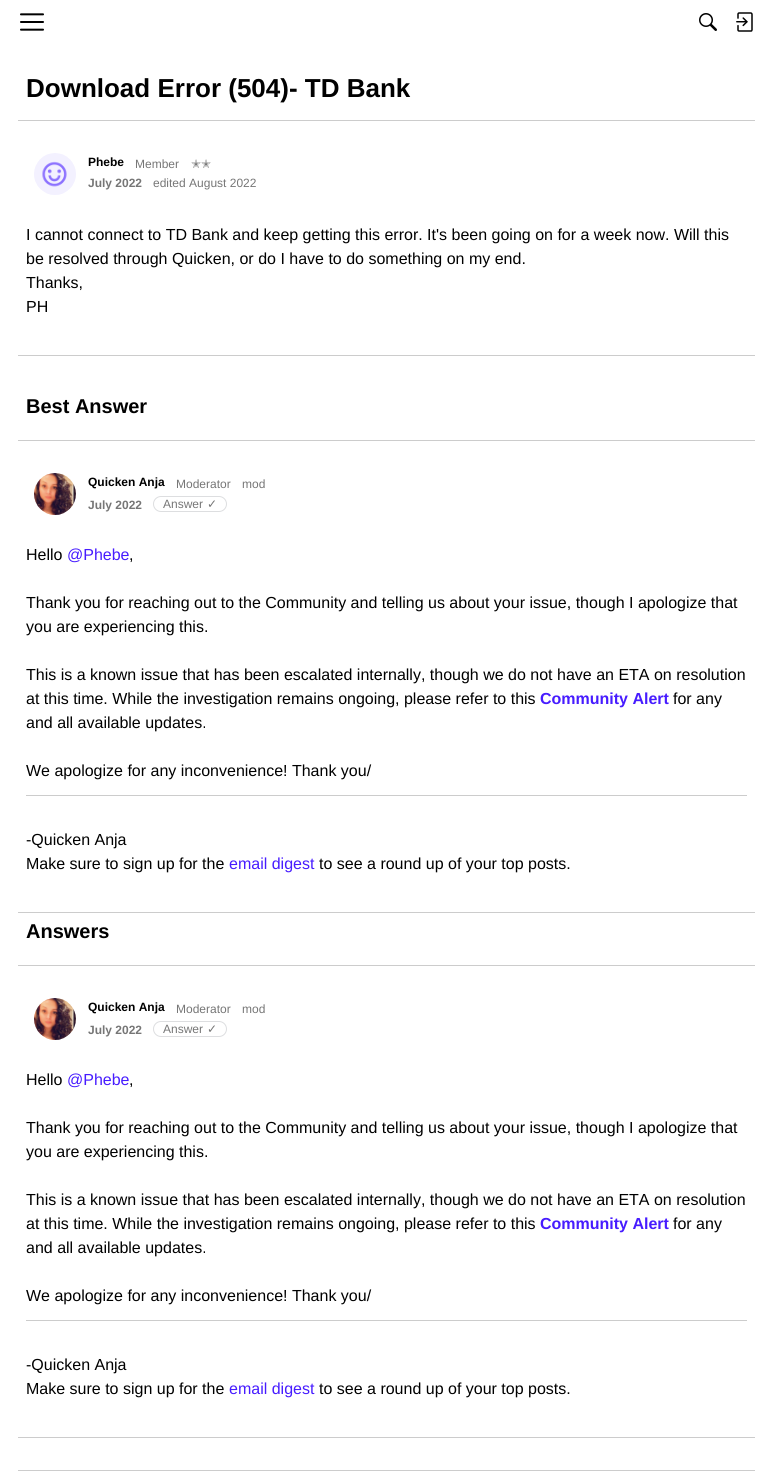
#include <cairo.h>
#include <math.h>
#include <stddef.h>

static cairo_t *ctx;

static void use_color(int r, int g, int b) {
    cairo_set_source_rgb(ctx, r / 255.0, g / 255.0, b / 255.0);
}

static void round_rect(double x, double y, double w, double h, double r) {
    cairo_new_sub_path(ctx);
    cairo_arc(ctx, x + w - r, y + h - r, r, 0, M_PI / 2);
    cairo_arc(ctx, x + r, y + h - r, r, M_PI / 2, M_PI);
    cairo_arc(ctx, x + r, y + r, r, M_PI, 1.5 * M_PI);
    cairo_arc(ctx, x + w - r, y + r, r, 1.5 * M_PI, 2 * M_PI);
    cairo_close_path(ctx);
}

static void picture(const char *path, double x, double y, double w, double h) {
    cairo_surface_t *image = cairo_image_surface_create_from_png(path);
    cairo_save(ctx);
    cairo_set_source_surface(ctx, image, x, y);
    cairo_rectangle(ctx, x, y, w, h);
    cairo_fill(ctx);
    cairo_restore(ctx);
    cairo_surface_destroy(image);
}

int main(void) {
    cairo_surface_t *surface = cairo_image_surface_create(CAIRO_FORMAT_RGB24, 773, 1481);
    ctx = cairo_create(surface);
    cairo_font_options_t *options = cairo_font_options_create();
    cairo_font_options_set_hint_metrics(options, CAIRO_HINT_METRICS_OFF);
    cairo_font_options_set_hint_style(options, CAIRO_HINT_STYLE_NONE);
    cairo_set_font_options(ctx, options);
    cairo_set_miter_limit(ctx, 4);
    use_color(255, 255, 255);
    cairo_paint(ctx);
    picture("img1.png", 20, 13, 24, 18);
    picture("img2.png", 699, 13, 18, 18);
    picture("img3.png", 736, 12, 17, 20);
    cairo_select_font_face(ctx, "Liberation Sans", CAIRO_FONT_SLANT_NORMAL, CAIRO_FONT_WEIGHT_BOLD);
    cairo_set_font_size(ctx, 26);
    use_color(0, 0, 0);
    cairo_move_to(ctx, 26, 97);
    cairo_show_text(ctx, "Download Error (504)- TD Bank");
    use_color(204, 204, 204);
    cairo_rectangle(ctx, 18, 120, 737, 1);
    cairo_fill(ctx);
    picture("img4.png", 34, 153, 42, 42);
    cairo_set_font_size(ctx, 12);
    use_color(0, 0, 0);
    cairo_move_to(ctx, 88, 166);
    cairo_show_text(ctx, "Phebe");
    cairo_select_font_face(ctx, "Liberation Sans", CAIRO_FONT_SLANT_NORMAL, CAIRO_FONT_WEIGHT_NORMAL);
    use_color(118, 118, 118);
    cairo_move_to(ctx, 135, 168);
    cairo_show_text(ctx, "Member");
    cairo_select_font_face(ctx, "DejaVu Sans", CAIRO_FONT_SLANT_NORMAL, CAIRO_FONT_WEIGHT_NORMAL);
    cairo_move_to(ctx, 191, 168);
    cairo_show_text(ctx, "✭✭");
    cairo_select_font_face(ctx, "Liberation Sans", CAIRO_FONT_SLANT_NORMAL, CAIRO_FONT_WEIGHT_BOLD);
    cairo_move_to(ctx, 88, 187);
    cairo_show_text(ctx, "July 2022");
    cairo_select_font_face(ctx, "Liberation Sans", CAIRO_FONT_SLANT_NORMAL, CAIRO_FONT_WEIGHT_NORMAL);
    cairo_move_to(ctx, 153, 187);
    cairo_show_text(ctx, "edited August 2022");
    cairo_set_font_size(ctx, 16);
    use_color(0, 0, 0);
    cairo_move_to(ctx, 26, 240);
    cairo_show_text(ctx, "I cannot connect to TD Bank and keep getting this error. It's been going on for a week now. Will this");
    cairo_move_to(ctx, 26, 264);
    cairo_show_text(ctx, "be resolved through Quicken, or do I have to do something on my end.");
    cairo_move_to(ctx, 26, 288);
    cairo_show_text(ctx, "Thanks,");
    cairo_move_to(ctx, 26, 312);
    cairo_show_text(ctx, "PH");
    use_color(204, 204, 204);
    cairo_rectangle(ctx, 18, 355, 737, 1);
    cairo_fill(ctx);
    cairo_select_font_face(ctx, "Liberation Sans", CAIRO_FONT_SLANT_NORMAL, CAIRO_FONT_WEIGHT_BOLD);
    cairo_set_font_size(ctx, 20);
    use_color(0, 0, 0);
    cairo_move_to(ctx, 26, 413);
    cairo_show_text(ctx, "Best Answer");
    use_color(204, 204, 204);
    cairo_rectangle(ctx, 18, 440, 737, 1);
    cairo_fill(ctx);
    picture("img5.png", 34, 473, 42, 42);
    cairo_set_font_size(ctx, 12);
    use_color(0, 0, 0);
    cairo_move_to(ctx, 88, 486);
    cairo_show_text(ctx, "Quicken Anja");
    cairo_select_font_face(ctx, "Liberation Sans", CAIRO_FONT_SLANT_NORMAL, CAIRO_FONT_WEIGHT_NORMAL);
    use_color(118, 118, 118);
    cairo_move_to(ctx, 176, 488);
    cairo_show_text(ctx, "Moderator");
    cairo_move_to(ctx, 242, 488);
    cairo_show_text(ctx, "mod");
    cairo_select_font_face(ctx, "Liberation Sans", CAIRO_FONT_SLANT_NORMAL, CAIRO_FONT_WEIGHT_BOLD);
    cairo_move_to(ctx, 88, 509);
    cairo_show_text(ctx, "July 2022");
    round_rect(153.5, 496.5, 73, 15, 7.5);
    use_color(221, 222, 224);
    cairo_set_line_width(ctx, 1);
    cairo_stroke(ctx);
    cairo_select_font_face(ctx, "Liberation Sans", CAIRO_FONT_SLANT_NORMAL, CAIRO_FONT_WEIGHT_NORMAL);
    use_color(118, 118, 118);
    cairo_move_to(ctx, 163, 508);
    cairo_show_text(ctx, "Answer");
    cairo_select_font_face(ctx, "DejaVu Sans", CAIRO_FONT_SLANT_NORMAL, CAIRO_FONT_WEIGHT_NORMAL);
    cairo_move_to(ctx, 207, 508);
    cairo_show_text(ctx, "✓");
    cairo_select_font_face(ctx, "Liberation Sans", CAIRO_FONT_SLANT_NORMAL, CAIRO_FONT_WEIGHT_NORMAL);
    cairo_set_font_size(ctx, 16);
    use_color(0, 0, 0);
    cairo_move_to(ctx, 26, 560);
    cairo_show_text(ctx, "Hello");
    use_color(71, 28, 255);
    cairo_move_to(ctx, 67, 560);
    cairo_show_text(ctx, "@Phebe");
    use_color(0, 0, 0);
    cairo_move_to(ctx, 129, 560);
    cairo_show_text(ctx, ",");
    cairo_move_to(ctx, 26, 608);
    cairo_show_text(ctx, "Thank you for reaching out to the Community and telling us about your issue, though I apologize that");
    cairo_move_to(ctx, 26, 632);
    cairo_show_text(ctx, "you are experiencing this.");
    cairo_move_to(ctx, 26, 680);
    cairo_show_text(ctx, "This is a known issue that has been escalated internally, though we do not have an ETA on resolution");
    cairo_move_to(ctx, 26, 704);
    cairo_show_text(ctx, "at this time. While the investigation remains ongoing, please refer to this");
    cairo_select_font_face(ctx, "Liberation Sans", CAIRO_FONT_SLANT_NORMAL, CAIRO_FONT_WEIGHT_BOLD);
    use_color(71, 28, 255);
    cairo_move_to(ctx, 540, 704);
    cairo_show_text(ctx, "Community Alert");
    cairo_select_font_face(ctx, "Liberation Sans", CAIRO_FONT_SLANT_NORMAL, CAIRO_FONT_WEIGHT_NORMAL);
    use_color(0, 0, 0);
    cairo_move_to(ctx, 673, 704);
    cairo_show_text(ctx, "for any");
    cairo_move_to(ctx, 26, 728);
    cairo_show_text(ctx, "and all available updates.");
    cairo_move_to(ctx, 26, 776);
    cairo_show_text(ctx, "We apologize for any inconvenience! Thank you/");
    use_color(204, 204, 204);
    cairo_rectangle(ctx, 26, 795, 721, 1);
    cairo_fill(ctx);
    use_color(0, 0, 0);
    cairo_move_to(ctx, 26, 845);
    cairo_show_text(ctx, "-Quicken Anja");
    cairo_move_to(ctx, 26, 869);
    cairo_show_text(ctx, "Make sure to sign up for the");
    use_color(71, 28, 255);
    cairo_move_to(ctx, 229, 869);
    cairo_show_text(ctx, "email digest");
    use_color(0, 0, 0);
    cairo_move_to(ctx, 319, 869);
    cairo_show_text(ctx, "to see a round up of your top posts.");
    use_color(204, 204, 204);
    cairo_rectangle(ctx, 18, 912, 737, 1);
    cairo_fill(ctx);
    cairo_select_font_face(ctx, "Liberation Sans", CAIRO_FONT_SLANT_NORMAL, CAIRO_FONT_WEIGHT_BOLD);
    cairo_set_font_size(ctx, 20);
    use_color(0, 0, 0);
    cairo_move_to(ctx, 26, 938);
    cairo_show_text(ctx, "Answers");
    use_color(204, 204, 204);
    cairo_rectangle(ctx, 18, 965, 737, 1);
    cairo_fill(ctx);
    picture("img6.png", 34, 998, 42, 42);
    cairo_set_font_size(ctx, 12);
    use_color(0, 0, 0);
    cairo_move_to(ctx, 88, 1011);
    cairo_show_text(ctx, "Quicken Anja");
    cairo_select_font_face(ctx, "Liberation Sans", CAIRO_FONT_SLANT_NORMAL, CAIRO_FONT_WEIGHT_NORMAL);
    use_color(118, 118, 118);
    cairo_move_to(ctx, 176, 1013);
    cairo_show_text(ctx, "Moderator");
    cairo_move_to(ctx, 242, 1013);
    cairo_show_text(ctx, "mod");
    cairo_select_font_face(ctx, "Liberation Sans", CAIRO_FONT_SLANT_NORMAL, CAIRO_FONT_WEIGHT_BOLD);
    cairo_move_to(ctx, 88, 1034);
    cairo_show_text(ctx, "July 2022");
    round_rect(153.5, 1021.5, 73, 15, 7.5);
    use_color(221, 222, 224);
    cairo_stroke(ctx);
    cairo_select_font_face(ctx, "Liberation Sans", CAIRO_FONT_SLANT_NORMAL, CAIRO_FONT_WEIGHT_NORMAL);
    use_color(118, 118, 118);
    cairo_move_to(ctx, 163, 1033);
    cairo_show_text(ctx, "Answer");
    cairo_select_font_face(ctx, "DejaVu Sans", CAIRO_FONT_SLANT_NORMAL, CAIRO_FONT_WEIGHT_NORMAL);
    cairo_move_to(ctx, 207, 1033);
    cairo_show_text(ctx, "✓");
    cairo_select_font_face(ctx, "Liberation Sans", CAIRO_FONT_SLANT_NORMAL, CAIRO_FONT_WEIGHT_NORMAL);
    cairo_set_font_size(ctx, 16);
    use_color(0, 0, 0);
    cairo_move_to(ctx, 26, 1085);
    cairo_show_text(ctx, "Hello");
    use_color(71, 28, 255);
    cairo_move_to(ctx, 67, 1085);
    cairo_show_text(ctx, "@Phebe");
    use_color(0, 0, 0);
    cairo_move_to(ctx, 129, 1085);
    cairo_show_text(ctx, ",");
    cairo_move_to(ctx, 26, 1133);
    cairo_show_text(ctx, "Thank you for reaching out to the Community and telling us about your issue, though I apologize that");
    cairo_move_to(ctx, 26, 1157);
    cairo_show_text(ctx, "you are experiencing this.");
    cairo_move_to(ctx, 26, 1205);
    cairo_show_text(ctx, "This is a known issue that has been escalated internally, though we do not have an ETA on resolution");
    cairo_move_to(ctx, 26, 1229);
    cairo_show_text(ctx, "at this time. While the investigation remains ongoing, please refer to this");
    cairo_select_font_face(ctx, "Liberation Sans", CAIRO_FONT_SLANT_NORMAL, CAIRO_FONT_WEIGHT_BOLD);
    use_color(71, 28, 255);
    cairo_move_to(ctx, 540, 1229);
    cairo_show_text(ctx, "Community Alert");
    cairo_select_font_face(ctx, "Liberation Sans", CAIRO_FONT_SLANT_NORMAL, CAIRO_FONT_WEIGHT_NORMAL);
    use_color(0, 0, 0);
    cairo_move_to(ctx, 673, 1229);
    cairo_show_text(ctx, "for any");
    cairo_move_to(ctx, 26, 1253);
    cairo_show_text(ctx, "and all available updates.");
    cairo_move_to(ctx, 26, 1301);
    cairo_show_text(ctx, "We apologize for any inconvenience! Thank you/");
    use_color(204, 204, 204);
    cairo_rectangle(ctx, 26, 1320, 721, 1);
    cairo_fill(ctx);
    use_color(0, 0, 0);
    cairo_move_to(ctx, 26, 1370);
    cairo_show_text(ctx, "-Quicken Anja");
    cairo_move_to(ctx, 26, 1394);
    cairo_show_text(ctx, "Make sure to sign up for the");
    use_color(71, 28, 255);
    cairo_move_to(ctx, 229, 1394);
    cairo_show_text(ctx, "email digest");
    use_color(0, 0, 0);
    cairo_move_to(ctx, 319, 1394);
    cairo_show_text(ctx, "to see a round up of your top posts.");
    use_color(204, 204, 204);
    cairo_rectangle(ctx, 18, 1437, 737, 1);
    cairo_fill(ctx);
    cairo_rectangle(ctx, 18, 1470, 737, 1);
    cairo_fill(ctx);
    cairo_surface_write_to_png(surface, "result.png");
    cairo_font_options_destroy(options);
    cairo_destroy(ctx);
    cairo_surface_destroy(surface);
    return 0;
}
